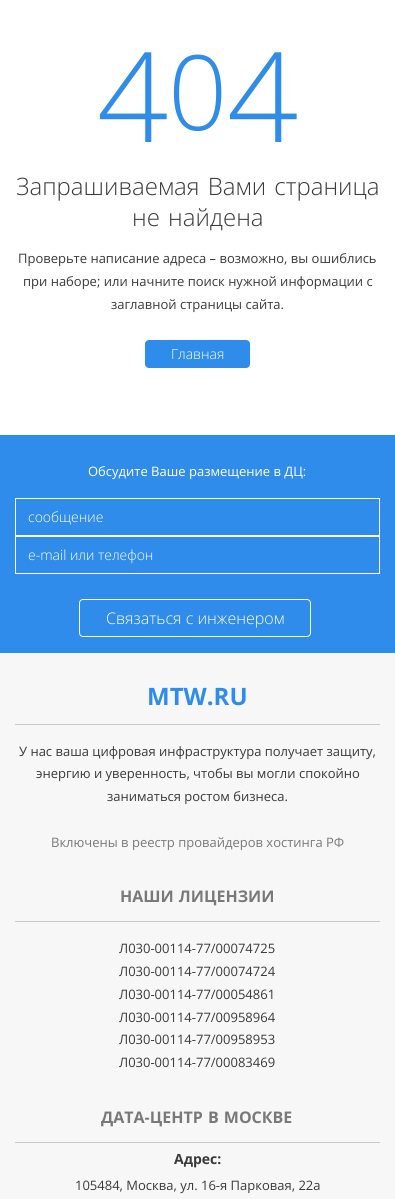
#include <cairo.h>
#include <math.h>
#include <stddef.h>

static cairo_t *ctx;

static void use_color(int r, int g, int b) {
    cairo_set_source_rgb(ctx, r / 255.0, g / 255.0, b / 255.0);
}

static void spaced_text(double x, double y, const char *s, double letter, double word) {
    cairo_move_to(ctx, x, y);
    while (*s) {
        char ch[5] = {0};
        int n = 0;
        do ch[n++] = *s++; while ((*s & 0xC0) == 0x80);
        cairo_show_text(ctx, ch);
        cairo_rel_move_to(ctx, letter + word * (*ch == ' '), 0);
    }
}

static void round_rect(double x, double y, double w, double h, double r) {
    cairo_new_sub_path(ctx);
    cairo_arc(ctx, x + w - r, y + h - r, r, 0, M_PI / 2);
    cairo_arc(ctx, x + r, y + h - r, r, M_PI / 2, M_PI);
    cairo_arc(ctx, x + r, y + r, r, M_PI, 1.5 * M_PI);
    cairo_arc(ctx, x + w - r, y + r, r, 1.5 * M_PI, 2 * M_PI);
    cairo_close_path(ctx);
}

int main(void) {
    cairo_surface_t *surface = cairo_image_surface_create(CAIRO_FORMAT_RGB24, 395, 1199);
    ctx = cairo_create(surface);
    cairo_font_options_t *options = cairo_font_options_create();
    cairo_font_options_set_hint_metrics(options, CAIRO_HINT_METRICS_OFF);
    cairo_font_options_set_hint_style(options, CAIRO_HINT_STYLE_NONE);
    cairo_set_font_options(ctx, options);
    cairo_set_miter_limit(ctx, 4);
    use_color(255, 255, 255);
    cairo_paint(ctx);
    cairo_select_font_face(ctx, "Open Sans Light", CAIRO_FONT_SLANT_NORMAL, CAIRO_FONT_WEIGHT_NORMAL);
    cairo_set_font_size(ctx, 125);
    use_color(47, 140, 234);
    cairo_move_to(ctx, 97, 142);
    cairo_show_text(ctx, "4");
    cairo_set_font_size(ctx, 104);
    cairo_move_to(ctx, 168, 130);
    cairo_show_text(ctx, "0");
    cairo_set_font_size(ctx, 125);
    cairo_move_to(ctx, 227, 142);
    cairo_show_text(ctx, "4");
    cairo_set_font_size(ctx, 24);
    use_color(58, 58, 58);
    spaced_text(16, 195, "Запрашиваемая Вами страница", 0, 2);
    spaced_text(132, 226, "не найдена", 0, 2);
    cairo_select_font_face(ctx, "Open Sans", CAIRO_FONT_SLANT_NORMAL, CAIRO_FONT_WEIGHT_NORMAL);
    cairo_set_font_size(ctx, 13);
    cairo_move_to(ctx, 18, 263);
    cairo_show_text(ctx, "Проверьте написание адреса – возможно, вы ошиблись");
    cairo_move_to(ctx, 23, 286);
    cairo_show_text(ctx, "при наборе; или начните поиск нужной информации с");
    cairo_move_to(ctx, 111, 309);
    cairo_show_text(ctx, "заглавной страницы сайта.");
    use_color(47, 140, 234);
    round_rect(145, 340, 105, 28, 4);
    cairo_fill(ctx);
    cairo_select_font_face(ctx, "Open Sans Light", CAIRO_FONT_SLANT_NORMAL, CAIRO_FONT_WEIGHT_NORMAL);
    cairo_set_font_size(ctx, 14);
    use_color(255, 255, 255);
    cairo_move_to(ctx, 171, 359);
    cairo_show_text(ctx, "Главная");
    use_color(247, 247, 247);
    cairo_rectangle(ctx, 0, 653, 395, 546);
    cairo_fill(ctx);
    use_color(47, 140, 234);
    cairo_rectangle(ctx, 0, 435, 395, 218);
    cairo_fill(ctx);
    cairo_select_font_face(ctx, "Open Sans", CAIRO_FONT_SLANT_NORMAL, CAIRO_FONT_WEIGHT_NORMAL);
    cairo_set_font_size(ctx, 13);
    use_color(255, 255, 255);
    cairo_move_to(ctx, 88, 476);
    cairo_show_text(ctx, "Обсудите Ваше размещение в ДЦ:");
    cairo_rectangle(ctx, 15.5, 498.5, 364, 37);
    cairo_set_line_width(ctx, 1);
    cairo_stroke(ctx);
    cairo_select_font_face(ctx, "Open Sans Light", CAIRO_FONT_SLANT_NORMAL, CAIRO_FONT_WEIGHT_NORMAL);
    cairo_set_font_size(ctx, 14);
    cairo_move_to(ctx, 28, 522);
    cairo_show_text(ctx, "сообщение");
    cairo_rectangle(ctx, 15.5, 536.5, 364, 37);
    cairo_stroke(ctx);
    cairo_move_to(ctx, 28, 560);
    cairo_show_text(ctx, "e-mail или телефон");
    round_rect(79.5, 599.5, 231, 37, 3.5);
    cairo_stroke(ctx);
    cairo_set_font_size(ctx, 16);
    cairo_move_to(ctx, 106, 624);
    cairo_show_text(ctx, "Связаться с инженером");
    use_color(200, 200, 200);
    cairo_rectangle(ctx, 15, 724, 365, 1);
    cairo_fill(ctx);
    cairo_select_font_face(ctx, "Open Sans", CAIRO_FONT_SLANT_NORMAL, CAIRO_FONT_WEIGHT_BOLD);
    cairo_set_font_size(ctx, 24);
    use_color(47, 140, 234);
    cairo_move_to(ctx, 147, 705);
    cairo_show_text(ctx, "MTW.RU");
    cairo_select_font_face(ctx, "Open Sans", CAIRO_FONT_SLANT_NORMAL, CAIRO_FONT_WEIGHT_NORMAL);
    cairo_set_font_size(ctx, 13);
    use_color(58, 58, 58);
    cairo_move_to(ctx, 19, 756);
    cairo_show_text(ctx, "У нас ваша цифровая инфраструктура получает защиту,");
    cairo_move_to(ctx, 36, 778);
    cairo_show_text(ctx, "энергию и уверенность, чтобы вы могли спокойно");
    cairo_move_to(ctx, 107, 801);
    cairo_show_text(ctx, "заниматься ростом бизнеса.");
    use_color(121, 121, 121);
    cairo_move_to(ctx, 51, 847);
    cairo_show_text(ctx, "Включены в реестр провайдеров хостинга РФ");
    use_color(200, 200, 200);
    cairo_rectangle(ctx, 15, 921, 365, 1);
    cairo_fill(ctx);
    cairo_select_font_face(ctx, "Open Sans", CAIRO_FONT_SLANT_NORMAL, CAIRO_FONT_WEIGHT_BOLD);
    cairo_set_font_size(ctx, 16);
    use_color(121, 121, 121);
    spaced_text(120, 902, "НАШИ ЛИЦЕНЗИИ", 0, 1);
    cairo_select_font_face(ctx, "Open Sans", CAIRO_FONT_SLANT_NORMAL, CAIRO_FONT_WEIGHT_NORMAL);
    cairo_set_font_size(ctx, 13);
    use_color(58, 58, 58);
    cairo_move_to(ctx, 119, 953);
    cairo_show_text(ctx, "Л030-00114-77/00074725");
    cairo_move_to(ctx, 119, 976);
    cairo_show_text(ctx, "Л030-00114-77/00074724");
    cairo_move_to(ctx, 119, 999);
    cairo_show_text(ctx, "Л030-00114-77/00054861");
    cairo_move_to(ctx, 119, 1022);
    cairo_show_text(ctx, "Л030-00114-77/00958964");
    cairo_move_to(ctx, 119, 1044);
    cairo_show_text(ctx, "Л030-00114-77/00958953");
    cairo_move_to(ctx, 119, 1067);
    cairo_show_text(ctx, "Л030-00114-77/00083469");
    use_color(200, 200, 200);
    cairo_rectangle(ctx, 15, 1142, 365, 1);
    cairo_fill(ctx);
    cairo_select_font_face(ctx, "Open Sans", CAIRO_FONT_SLANT_NORMAL, CAIRO_FONT_WEIGHT_BOLD);
    cairo_set_font_size(ctx, 16);
    use_color(121, 121, 121);
    spaced_text(101, 1123, "ДАТА-ЦЕНТР В МОСКВЕ", 0, 1);
    cairo_set_font_size(ctx, 14);
    use_color(58, 58, 58);
    cairo_move_to(ctx, 174, 1164);
    cairo_show_text(ctx, "Адрес:");
    cairo_select_font_face(ctx, "Open Sans", CAIRO_FONT_SLANT_NORMAL, CAIRO_FONT_WEIGHT_NORMAL);
    cairo_set_font_size(ctx, 13);
    cairo_move_to(ctx, 75, 1190);
    cairo_show_text(ctx, "105484, Москва, ул. 16-я Парковая, 22а");
    cairo_surface_write_to_png(surface, "result.png");
    cairo_font_options_destroy(options);
    cairo_destroy(ctx);
    cairo_surface_destroy(surface);
    return 0;
}
